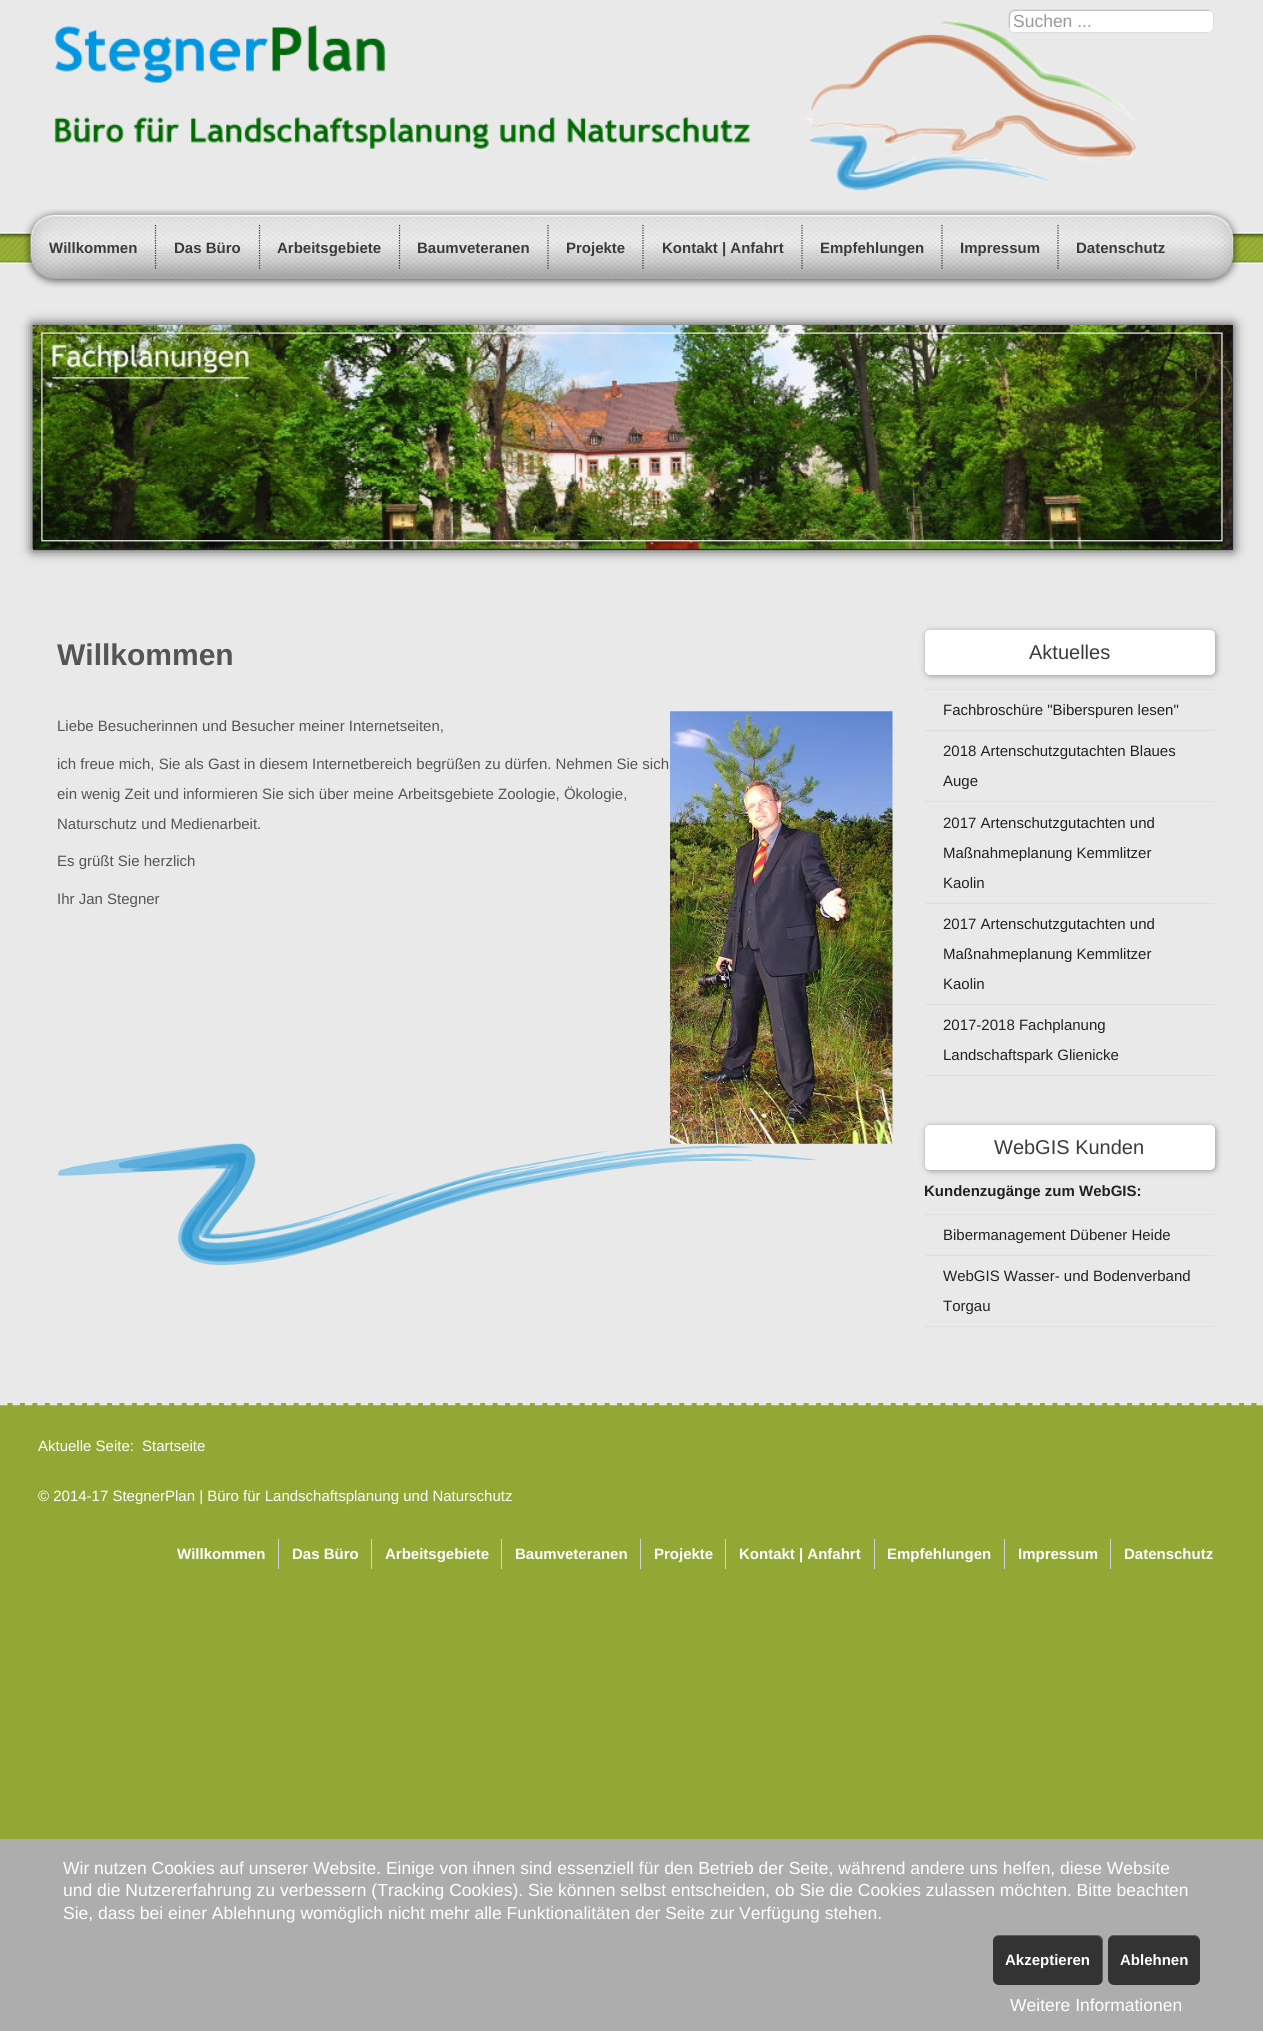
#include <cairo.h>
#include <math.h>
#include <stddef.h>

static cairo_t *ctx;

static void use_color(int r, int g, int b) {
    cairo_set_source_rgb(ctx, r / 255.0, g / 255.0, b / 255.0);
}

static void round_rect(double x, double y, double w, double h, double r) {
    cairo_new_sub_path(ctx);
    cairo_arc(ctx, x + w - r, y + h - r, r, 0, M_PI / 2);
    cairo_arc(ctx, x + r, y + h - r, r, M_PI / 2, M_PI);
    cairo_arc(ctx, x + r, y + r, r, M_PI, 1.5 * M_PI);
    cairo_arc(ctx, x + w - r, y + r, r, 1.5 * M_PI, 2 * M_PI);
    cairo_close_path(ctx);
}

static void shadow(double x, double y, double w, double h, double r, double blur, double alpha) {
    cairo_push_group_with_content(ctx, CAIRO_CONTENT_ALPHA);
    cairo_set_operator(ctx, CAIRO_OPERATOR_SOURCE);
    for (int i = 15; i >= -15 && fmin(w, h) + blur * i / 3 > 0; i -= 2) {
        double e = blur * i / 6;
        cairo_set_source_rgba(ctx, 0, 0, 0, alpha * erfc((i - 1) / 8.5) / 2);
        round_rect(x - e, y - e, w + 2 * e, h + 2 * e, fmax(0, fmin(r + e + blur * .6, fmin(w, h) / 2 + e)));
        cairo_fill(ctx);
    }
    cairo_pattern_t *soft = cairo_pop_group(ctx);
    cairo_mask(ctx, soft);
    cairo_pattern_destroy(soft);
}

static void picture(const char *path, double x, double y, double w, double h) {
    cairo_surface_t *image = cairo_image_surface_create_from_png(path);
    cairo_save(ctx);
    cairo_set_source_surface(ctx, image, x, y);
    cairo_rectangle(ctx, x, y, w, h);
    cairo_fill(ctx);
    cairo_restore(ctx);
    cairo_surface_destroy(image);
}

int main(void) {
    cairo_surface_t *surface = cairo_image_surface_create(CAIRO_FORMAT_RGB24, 1263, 2031);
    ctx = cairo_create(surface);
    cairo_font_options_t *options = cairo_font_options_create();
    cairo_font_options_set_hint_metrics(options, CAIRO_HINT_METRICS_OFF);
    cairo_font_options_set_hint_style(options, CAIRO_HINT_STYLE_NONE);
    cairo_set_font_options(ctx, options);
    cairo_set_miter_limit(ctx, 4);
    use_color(145, 169, 52);
    cairo_paint(ctx);
    use_color(233, 233, 233);
    cairo_rectangle(ctx, 0, 0, 1263, 1403);
    cairo_fill(ctx);
    picture("img1.png", 0, 209, 1263, 79);
    picture("img2.png", 54, 21, 1083, 170);
    use_color(255, 255, 255);
    round_rect(1008, 9, 206, 24, 6);
    cairo_fill(ctx);
    use_color(192, 192, 192);
    cairo_new_path(ctx);
    cairo_move_to(ctx, 1015, 11);
    cairo_line_to(ctx, 1209, 11);
    cairo_line_to(ctx, 1212, 12);
    cairo_curve_to(ctx, 1211, 11, 1209, 10, 1208, 10);
    cairo_line_to(ctx, 1014, 10);
    cairo_curve_to(ctx, 1011, 10, 1009, 12, 1009, 15);
    cairo_line_to(ctx, 1009, 26);
    cairo_curve_to(ctx, 1009, 27, 1009, 28, 1010, 29);
    cairo_line_to(ctx, 1010, 22);
    cairo_curve_to(ctx, 1010, 18, 1009, 11, 1015, 11);
    cairo_close_path(ctx);
    cairo_fill(ctx);
    round_rect(1008.5, 9.5, 205, 23, 5.5);
    use_color(222, 222, 222);
    cairo_set_line_width(ctx, 1);
    cairo_stroke(ctx);
    cairo_select_font_face(ctx, "Liberation Sans", CAIRO_FONT_SLANT_NORMAL, CAIRO_FONT_WEIGHT_NORMAL);
    cairo_set_font_size(ctx, 17.5);
    use_color(153, 153, 153);
    cairo_move_to(ctx, 1013, 27);
    cairo_show_text(ctx, "Suchen ...");
    cairo_select_font_face(ctx, "Liberation Sans", CAIRO_FONT_SLANT_NORMAL, CAIRO_FONT_WEIGHT_BOLD);
    cairo_set_font_size(ctx, 15);
    use_color(58, 59, 59);
    cairo_move_to(ctx, 49, 253);
    cairo_show_text(ctx, "Willkommen");
    cairo_new_path(ctx);
    cairo_move_to(ctx, 155.5, 225);
    cairo_line_to(ctx, 155.5, 270);
    use_color(51, 51, 51);
    cairo_set_line_width(ctx, 1.2);
    cairo_set_dash(ctx, (double[]){1.25, 1.25}, 2, 0);
    cairo_stroke(ctx);
    use_color(58, 59, 59);
    cairo_move_to(ctx, 174, 253);
    cairo_show_text(ctx, "Das Büro");
    cairo_new_path(ctx);
    cairo_move_to(ctx, 259.5, 225);
    cairo_line_to(ctx, 259.5, 270);
    use_color(51, 51, 51);
    cairo_stroke(ctx);
    use_color(58, 59, 59);
    cairo_move_to(ctx, 277, 253);
    cairo_show_text(ctx, "Arbeitsgebiete");
    cairo_new_path(ctx);
    cairo_move_to(ctx, 399.5, 225);
    cairo_line_to(ctx, 399.5, 270);
    use_color(51, 51, 51);
    cairo_stroke(ctx);
    use_color(58, 59, 59);
    cairo_move_to(ctx, 417, 253);
    cairo_show_text(ctx, "Baumveteranen");
    cairo_new_path(ctx);
    cairo_move_to(ctx, 548, 225);
    cairo_line_to(ctx, 548, 270);
    use_color(51, 51, 51);
    cairo_stroke(ctx);
    use_color(58, 59, 59);
    cairo_move_to(ctx, 566, 253);
    cairo_show_text(ctx, "Projekte");
    cairo_new_path(ctx);
    cairo_move_to(ctx, 643, 225);
    cairo_line_to(ctx, 643, 270);
    use_color(51, 51, 51);
    cairo_stroke(ctx);
    use_color(58, 59, 59);
    cairo_move_to(ctx, 662, 253);
    cairo_show_text(ctx, "Kontakt | Anfahrt");
    cairo_new_path(ctx);
    cairo_move_to(ctx, 802, 225);
    cairo_line_to(ctx, 802, 270);
    use_color(51, 51, 51);
    cairo_stroke(ctx);
    use_color(58, 59, 59);
    cairo_move_to(ctx, 820, 253);
    cairo_show_text(ctx, "Empfehlungen");
    cairo_new_path(ctx);
    cairo_move_to(ctx, 942, 225);
    cairo_line_to(ctx, 942, 270);
    use_color(51, 51, 51);
    cairo_stroke(ctx);
    use_color(58, 59, 59);
    cairo_move_to(ctx, 960, 253);
    cairo_show_text(ctx, "Impressum");
    cairo_new_path(ctx);
    cairo_move_to(ctx, 1058, 225);
    cairo_line_to(ctx, 1058, 270);
    use_color(51, 51, 51);
    cairo_stroke(ctx);
    use_color(58, 59, 59);
    cairo_move_to(ctx, 1076, 253);
    cairo_show_text(ctx, "Datenschutz");
    use_color(51, 51, 51);
    shadow(33, 325, 1200, 225, 0, 6, 1);
    use_color(32, 40, 52);
    cairo_rectangle(ctx, 33, 325, 1200, 225);
    cairo_fill(ctx);
    picture("img3.png", 32, 325, 1201, 224);
    cairo_set_font_size(ctx, 30);
    use_color(85, 85, 85);
    cairo_move_to(ctx, 57, 665);
    cairo_show_text(ctx, "Willkommen");
    cairo_select_font_face(ctx, "Liberation Sans", CAIRO_FONT_SLANT_NORMAL, CAIRO_FONT_WEIGHT_NORMAL);
    cairo_set_font_size(ctx, 15);
    cairo_move_to(ctx, 57, 731);
    cairo_show_text(ctx, "Liebe Besucherinnen und Besucher meiner Internetseiten,");
    picture("img4.png", 670, 711, 223, 433);
    cairo_move_to(ctx, 57, 769);
    cairo_show_text(ctx, "ich freue mich, Sie als Gast in diesem Internetbereich begrüßen zu dürfen. Nehmen Sie sich");
    cairo_move_to(ctx, 57, 799);
    cairo_show_text(ctx, "ein wenig Zeit und informieren Sie sich über meine Arbeitsgebiete Zoologie, Ökologie,");
    cairo_move_to(ctx, 57, 829);
    cairo_show_text(ctx, "Naturschutz und Medienarbeit.");
    cairo_move_to(ctx, 57, 866);
    cairo_show_text(ctx, "Es grüßt Sie herzlich");
    cairo_move_to(ctx, 57, 904);
    cairo_show_text(ctx, "Ihr Jan Stegner");
    picture("img5.png", 57, 1143, 759, 122);
    use_color(153, 153, 153);
    shadow(926, 631, 290, 45, 5, 3, 1);
    use_color(255, 255, 255);
    round_rect(925, 630, 290, 45, 5);
    cairo_fill(ctx);
    cairo_set_font_size(ctx, 20);
    use_color(58, 59, 59);
    cairo_move_to(ctx, 1029, 659);
    cairo_show_text(ctx, "Aktuelles");
    use_color(222, 222, 222);
    cairo_rectangle(ctx, 925, 689, 290, 1);
    cairo_fill(ctx);
    cairo_set_font_size(ctx, 15);
    use_color(34, 34, 34);
    cairo_move_to(ctx, 943, 715);
    cairo_show_text(ctx, "Fachbroschüre \"Biberspuren lesen\"");
    use_color(222, 222, 222);
    cairo_rectangle(ctx, 925, 730, 290, 1);
    cairo_fill(ctx);
    use_color(34, 34, 34);
    cairo_move_to(ctx, 943, 756);
    cairo_show_text(ctx, "2018 Artenschutzgutachten Blaues");
    cairo_move_to(ctx, 943, 786);
    cairo_show_text(ctx, "Auge");
    use_color(222, 222, 222);
    cairo_rectangle(ctx, 925, 801, 290, 1);
    cairo_fill(ctx);
    use_color(34, 34, 34);
    cairo_move_to(ctx, 943, 828);
    cairo_show_text(ctx, "2017 Artenschutzgutachten und");
    cairo_move_to(ctx, 943, 858);
    cairo_show_text(ctx, "Maßnahmeplanung Kemmlitzer");
    cairo_move_to(ctx, 943, 888);
    cairo_show_text(ctx, "Kaolin");
    use_color(222, 222, 222);
    cairo_rectangle(ctx, 925, 903, 290, 1);
    cairo_fill(ctx);
    use_color(34, 34, 34);
    cairo_move_to(ctx, 943, 929);
    cairo_show_text(ctx, "2017 Artenschutzgutachten und");
    cairo_move_to(ctx, 943, 959);
    cairo_show_text(ctx, "Maßnahmeplanung Kemmlitzer");
    cairo_move_to(ctx, 943, 989);
    cairo_show_text(ctx, "Kaolin");
    use_color(222, 222, 222);
    cairo_rectangle(ctx, 925, 1004, 290, 1);
    cairo_fill(ctx);
    cairo_rectangle(ctx, 925, 1075, 290, 1);
    cairo_fill(ctx);
    use_color(34, 34, 34);
    cairo_move_to(ctx, 943, 1030);
    cairo_show_text(ctx, "2017-2018 Fachplanung");
    cairo_move_to(ctx, 943, 1060);
    cairo_show_text(ctx, "Landschaftspark Glienicke");
    use_color(153, 153, 153);
    shadow(926, 1126, 290, 45, 5, 3, 1);
    use_color(255, 255, 255);
    round_rect(925, 1125, 290, 45, 5);
    cairo_fill(ctx);
    cairo_set_font_size(ctx, 20);
    use_color(58, 59, 59);
    cairo_move_to(ctx, 994, 1154);
    cairo_show_text(ctx, "WebGIS Kunden");
    cairo_select_font_face(ctx, "Liberation Sans", CAIRO_FONT_SLANT_NORMAL, CAIRO_FONT_WEIGHT_BOLD);
    cairo_set_font_size(ctx, 15);
    use_color(34, 34, 34);
    cairo_move_to(ctx, 924, 1196);
    cairo_show_text(ctx, "Kundenzugänge zum WebGIS:");
    use_color(222, 222, 222);
    cairo_rectangle(ctx, 925, 1214, 290, 1);
    cairo_fill(ctx);
    cairo_select_font_face(ctx, "Liberation Sans", CAIRO_FONT_SLANT_NORMAL, CAIRO_FONT_WEIGHT_NORMAL);
    use_color(34, 34, 34);
    cairo_move_to(ctx, 943, 1240);
    cairo_show_text(ctx, "Bibermanagement Dübener Heide");
    use_color(222, 222, 222);
    cairo_rectangle(ctx, 925, 1255, 290, 1);
    cairo_fill(ctx);
    cairo_rectangle(ctx, 925, 1326, 290, 1);
    cairo_fill(ctx);
    use_color(34, 34, 34);
    cairo_move_to(ctx, 943, 1281);
    cairo_show_text(ctx, "WebGIS Wasser- und Bodenverband");
    cairo_move_to(ctx, 943, 1311);
    cairo_show_text(ctx, "Torgau");
    cairo_new_path(ctx);
    cairo_move_to(ctx, 0, 1404);
    cairo_line_to(ctx, 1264, 1404);
    use_color(233, 233, 233);
    cairo_set_line_width(ctx, 2.5);
    cairo_set_dash(ctx, (double[]){7.5, 4.94}, 2, 0);
    cairo_stroke(ctx);
    use_color(255, 255, 255);
    cairo_move_to(ctx, 38, 1451);
    cairo_show_text(ctx, "Aktuelle Seite:");
    cairo_move_to(ctx, 142, 1451);
    cairo_show_text(ctx, "Startseite");
    cairo_move_to(ctx, 38, 1501);
    cairo_show_text(ctx, "© 2014-17 StegnerPlan | Büro für Landschaftsplanung und Naturschutz");
    use_color(210, 210, 210);
    cairo_rectangle(ctx, 278, 1539, 1, 30);
    cairo_fill(ctx);
    cairo_select_font_face(ctx, "Liberation Sans", CAIRO_FONT_SLANT_NORMAL, CAIRO_FONT_WEIGHT_BOLD);
    use_color(255, 255, 255);
    cairo_move_to(ctx, 177, 1559);
    cairo_show_text(ctx, "Willkommen");
    use_color(210, 210, 210);
    cairo_rectangle(ctx, 371, 1539, 1, 30);
    cairo_fill(ctx);
    use_color(255, 255, 255);
    cairo_move_to(ctx, 292, 1559);
    cairo_show_text(ctx, "Das Büro");
    use_color(210, 210, 210);
    cairo_rectangle(ctx, 501, 1539, 1, 30);
    cairo_fill(ctx);
    use_color(255, 255, 255);
    cairo_move_to(ctx, 385, 1559);
    cairo_show_text(ctx, "Arbeitsgebiete");
    use_color(210, 210, 210);
    cairo_rectangle(ctx, 640, 1539, 1, 30);
    cairo_fill(ctx);
    use_color(255, 255, 255);
    cairo_move_to(ctx, 515, 1559);
    cairo_show_text(ctx, "Baumveteranen");
    use_color(210, 210, 210);
    cairo_rectangle(ctx, 725, 1539, 1, 30);
    cairo_fill(ctx);
    use_color(255, 255, 255);
    cairo_move_to(ctx, 654, 1559);
    cairo_show_text(ctx, "Projekte");
    use_color(210, 210, 210);
    cairo_rectangle(ctx, 874, 1539, 1, 30);
    cairo_fill(ctx);
    use_color(255, 255, 255);
    cairo_move_to(ctx, 739, 1559);
    cairo_show_text(ctx, "Kontakt | Anfahrt");
    use_color(210, 210, 210);
    cairo_rectangle(ctx, 1004, 1539, 1, 30);
    cairo_fill(ctx);
    use_color(255, 255, 255);
    cairo_move_to(ctx, 887, 1559);
    cairo_show_text(ctx, "Empfehlungen");
    use_color(210, 210, 210);
    cairo_rectangle(ctx, 1110, 1539, 1, 30);
    cairo_fill(ctx);
    use_color(255, 255, 255);
    cairo_move_to(ctx, 1018, 1559);
    cairo_show_text(ctx, "Impressum");
    cairo_move_to(ctx, 1124, 1559);
    cairo_show_text(ctx, "Datenschutz");
    use_color(173, 173, 173);
    cairo_rectangle(ctx, 0, 1839, 1263, 192);
    cairo_fill(ctx);
    cairo_select_font_face(ctx, "Liberation Sans", CAIRO_FONT_SLANT_NORMAL, CAIRO_FONT_WEIGHT_NORMAL);
    cairo_set_font_size(ctx, 17.5);
    use_color(255, 255, 255);
    cairo_move_to(ctx, 63, 1874);
    cairo_show_text(ctx, "Wir nutzen Cookies auf unserer Website. Einige von ihnen sind essenziell für den Betrieb der Seite, während andere uns helfen, diese Website");
    cairo_move_to(ctx, 63, 1896);
    cairo_show_text(ctx, "und die Nutzererfahrung zu verbessern (Tracking Cookies). Sie können selbst entscheiden, ob Sie die Cookies zulassen möchten. Bitte beachten");
    cairo_move_to(ctx, 63, 1919);
    cairo_show_text(ctx, "Sie, dass bei einer Ablehnung womöglich nicht mehr alle Funktionalitäten der Seite zur Verfügung stehen.");
    use_color(51, 51, 51);
    round_rect(993, 1935, 110, 50, 6);
    cairo_fill(ctx);
    cairo_set_source_rgba(ctx, 1, 1, 1, 0.2);
    cairo_new_path(ctx);
    cairo_move_to(ctx, 999, 1936);
    cairo_line_to(ctx, 1096, 1936);
    cairo_curve_to(ctx, 1100, 1936, 1102, 1939, 1102, 1942);
    cairo_line_to(ctx, 1102, 1980);
    cairo_curve_to(ctx, 1102, 1981, 1102, 1982, 1101, 1983);
    cairo_curve_to(ctx, 1102, 1982, 1103, 1981, 1103, 1979);
    cairo_line_to(ctx, 1103, 1941);
    cairo_curve_to(ctx, 1103, 1938, 1100, 1935, 1097, 1935);
    cairo_line_to(ctx, 999, 1935);
    cairo_curve_to(ctx, 997, 1935, 995, 1936, 994, 1938);
    cairo_curve_to(ctx, 995, 1937, 997, 1936, 999, 1936);
    cairo_close_path(ctx);
    cairo_fill(ctx);
    cairo_select_font_face(ctx, "Liberation Sans", CAIRO_FONT_SLANT_NORMAL, CAIRO_FONT_WEIGHT_BOLD);
    cairo_set_font_size(ctx, 15);
    use_color(255, 255, 255);
    cairo_move_to(ctx, 1005, 1965);
    cairo_show_text(ctx, "Akzeptieren");
    use_color(51, 51, 51);
    round_rect(1108, 1935, 92, 50, 6);
    cairo_fill(ctx);
    cairo_set_source_rgba(ctx, 1, 1, 1, 0.2);
    cairo_new_path(ctx);
    cairo_move_to(ctx, 1114, 1936);
    cairo_line_to(ctx, 1194, 1936);
    cairo_curve_to(ctx, 1197, 1936, 1200, 1939, 1200, 1942);
    cairo_curve_to(ctx, 1200, 1932, 1187, 1935, 1181, 1935);
    cairo_line_to(ctx, 1127, 1935);
    cairo_curve_to(ctx, 1121, 1935, 1108, 1932, 1108, 1942);
    cairo_curve_to(ctx, 1108, 1939, 1110, 1936, 1114, 1936);
    cairo_close_path(ctx);
    cairo_fill(ctx);
    use_color(255, 255, 255);
    cairo_move_to(ctx, 1120, 1965);
    cairo_show_text(ctx, "Ablehnen");
    cairo_select_font_face(ctx, "Liberation Sans", CAIRO_FONT_SLANT_NORMAL, CAIRO_FONT_WEIGHT_NORMAL);
    cairo_set_font_size(ctx, 17.5);
    cairo_move_to(ctx, 1010, 2011);
    cairo_show_text(ctx, "Weitere Informationen");
    cairo_surface_write_to_png(surface, "result.png");
    cairo_font_options_destroy(options);
    cairo_destroy(ctx);
    cairo_surface_destroy(surface);
    return 0;
}
